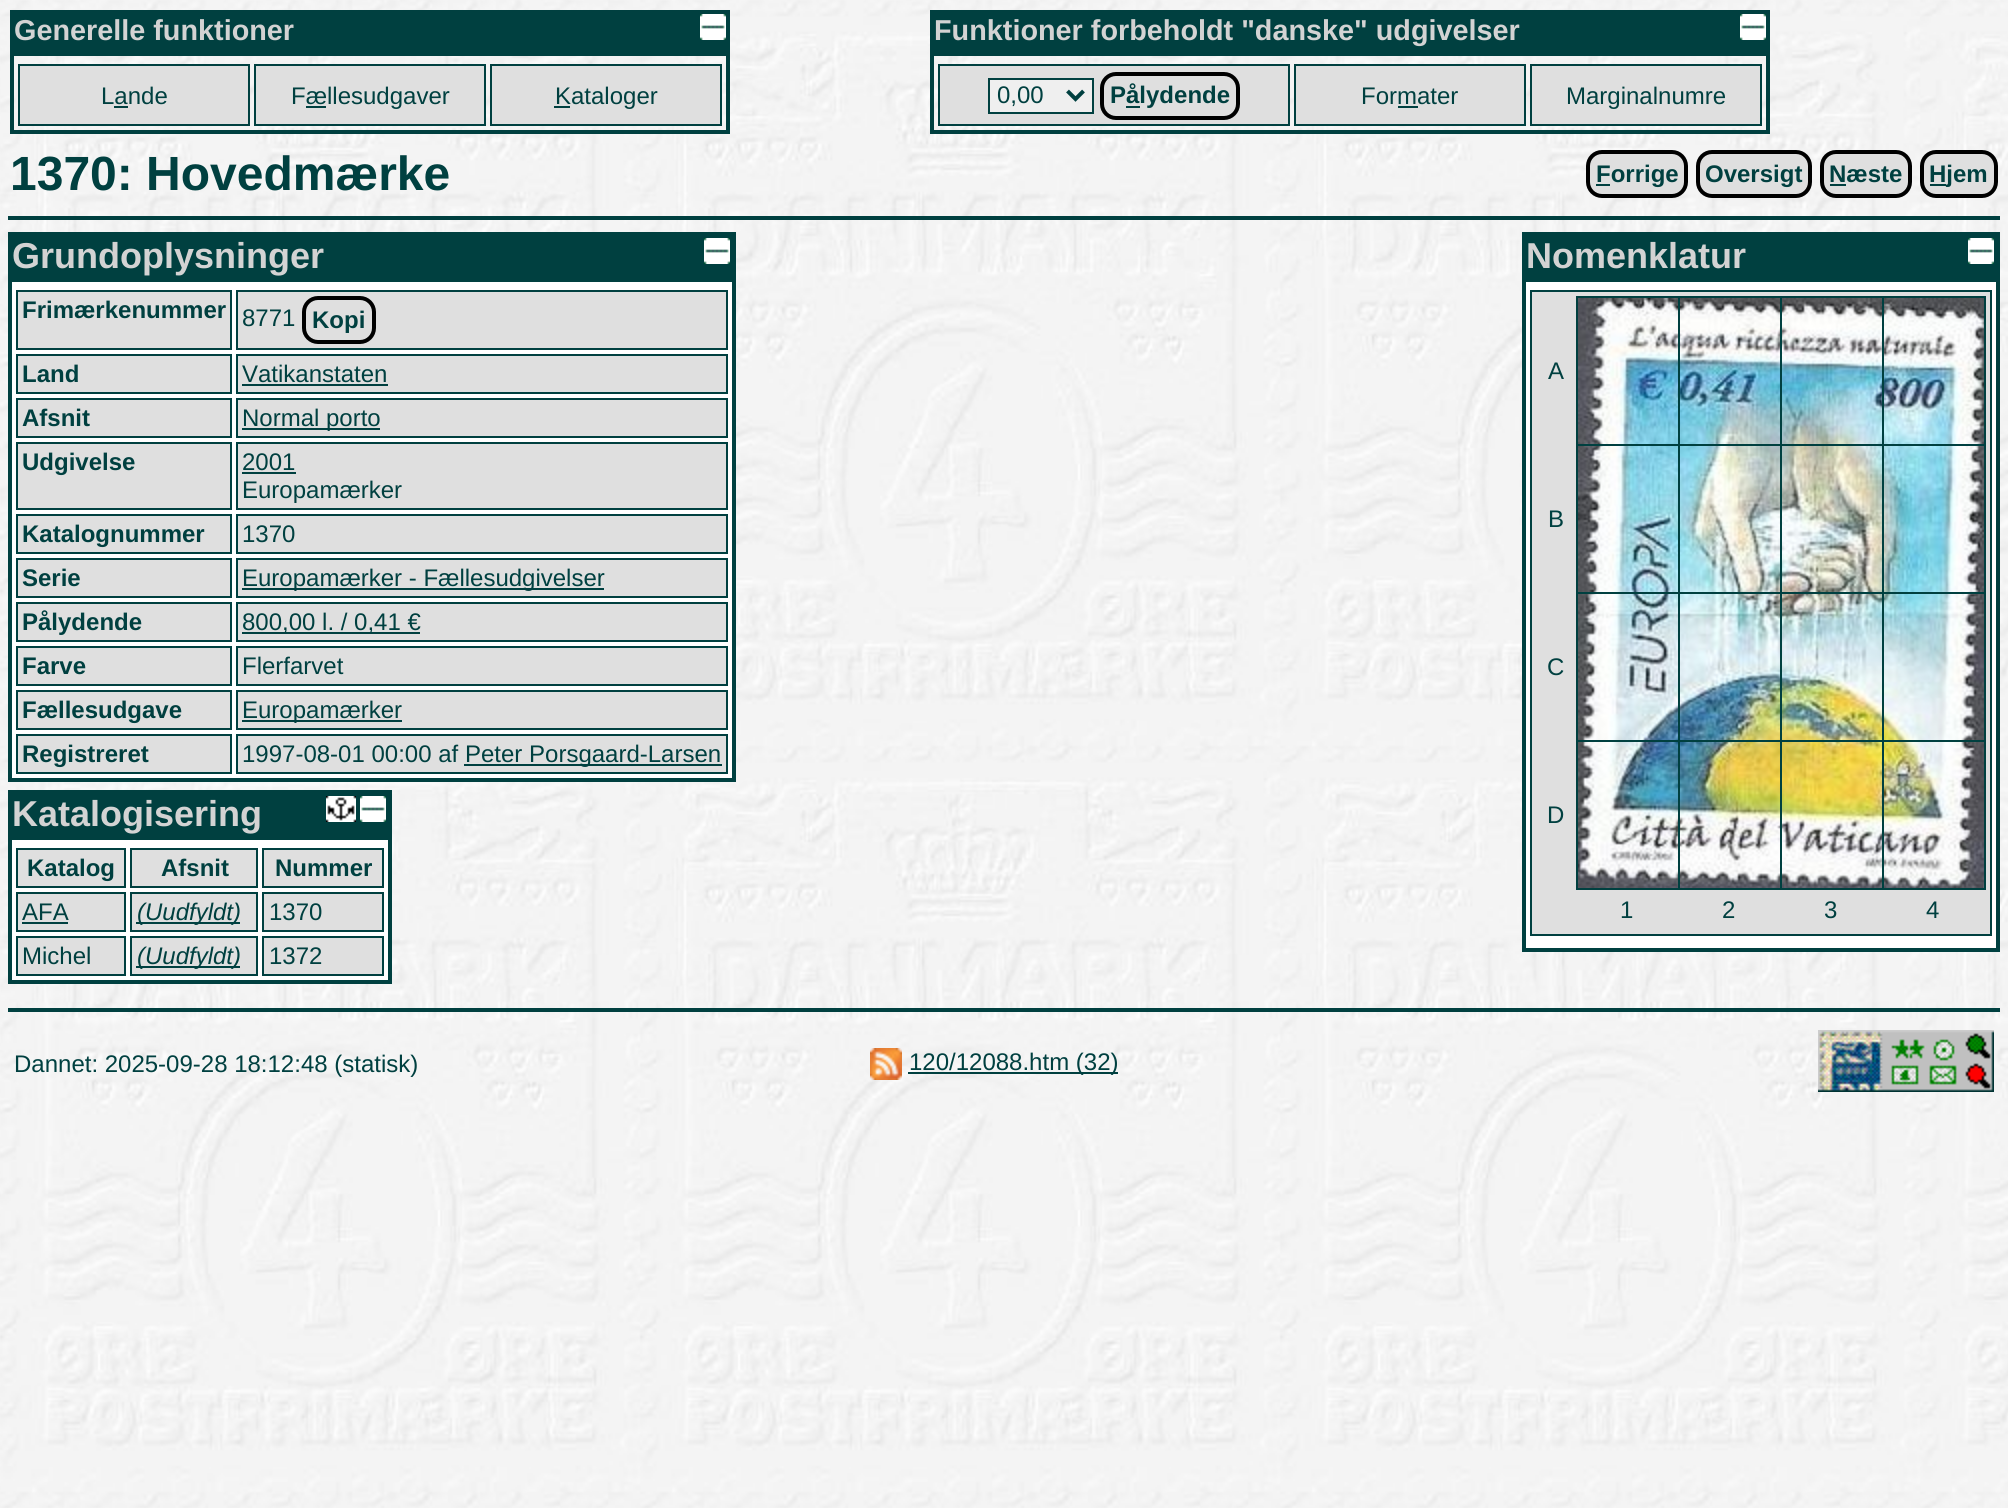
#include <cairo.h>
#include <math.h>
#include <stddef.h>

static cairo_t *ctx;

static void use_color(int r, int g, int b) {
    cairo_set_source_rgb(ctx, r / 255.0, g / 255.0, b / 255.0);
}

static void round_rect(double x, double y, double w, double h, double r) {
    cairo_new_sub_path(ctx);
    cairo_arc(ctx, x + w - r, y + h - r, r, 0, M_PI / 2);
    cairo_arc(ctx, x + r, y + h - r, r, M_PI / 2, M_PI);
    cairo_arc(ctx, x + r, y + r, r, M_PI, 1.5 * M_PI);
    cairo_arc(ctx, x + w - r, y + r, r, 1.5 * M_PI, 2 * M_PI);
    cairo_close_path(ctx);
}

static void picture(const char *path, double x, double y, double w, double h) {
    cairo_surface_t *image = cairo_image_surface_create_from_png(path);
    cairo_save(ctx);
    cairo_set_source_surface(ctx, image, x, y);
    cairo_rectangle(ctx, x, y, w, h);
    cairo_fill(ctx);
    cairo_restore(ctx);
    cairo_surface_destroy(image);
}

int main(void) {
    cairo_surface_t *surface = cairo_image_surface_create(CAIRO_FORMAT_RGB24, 2008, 1508);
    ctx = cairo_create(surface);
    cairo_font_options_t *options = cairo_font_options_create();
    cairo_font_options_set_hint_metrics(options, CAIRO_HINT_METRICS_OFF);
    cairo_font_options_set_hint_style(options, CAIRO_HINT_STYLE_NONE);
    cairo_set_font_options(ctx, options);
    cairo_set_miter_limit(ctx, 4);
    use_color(255, 255, 255);
    cairo_paint(ctx);
    picture("img1.png", 0, 0, 2008, 1508);
    cairo_rectangle(ctx, 12, 12, 716, 120);
    use_color(0, 64, 64);
    cairo_set_line_width(ctx, 4);
    cairo_stroke(ctx);
    cairo_rectangle(ctx, 14, 14, 712, 42);
    cairo_fill(ctx);
    cairo_select_font_face(ctx, "Liberation Sans", CAIRO_FONT_SLANT_NORMAL, CAIRO_FONT_WEIGHT_BOLD);
    cairo_set_font_size(ctx, 28.8);
    use_color(211, 211, 211);
    cairo_move_to(ctx, 14, 40);
    cairo_show_text(ctx, "Generelle funktioner");
    picture("img2.png", 700, 14, 26, 26);
    use_color(223, 223, 223);
    cairo_rectangle(ctx, 19, 65, 230, 60);
    cairo_fill_preserve(ctx);
    use_color(0, 64, 64);
    cairo_set_line_width(ctx, 2);
    cairo_stroke(ctx);
    cairo_select_font_face(ctx, "Liberation Sans", CAIRO_FONT_SLANT_NORMAL, CAIRO_FONT_WEIGHT_NORMAL);
    cairo_set_font_size(ctx, 24);
    cairo_move_to(ctx, 101, 104);
    cairo_show_text(ctx, "Lande");
    cairo_rectangle(ctx, 114, 106, 14, 2);
    cairo_fill(ctx);
    use_color(223, 223, 223);
    cairo_rectangle(ctx, 255, 65, 230, 60);
    cairo_fill_preserve(ctx);
    use_color(0, 64, 64);
    cairo_stroke(ctx);
    cairo_move_to(ctx, 291, 104);
    cairo_show_text(ctx, "Fællesudgaver");
    cairo_rectangle(ctx, 306, 106, 20, 2);
    cairo_fill(ctx);
    use_color(223, 223, 223);
    cairo_rectangle(ctx, 491, 65, 230, 60);
    cairo_fill_preserve(ctx);
    use_color(0, 64, 64);
    cairo_stroke(ctx);
    cairo_rectangle(ctx, 554, 106, 16, 2);
    cairo_fill(ctx);
    cairo_move_to(ctx, 555, 104);
    cairo_show_text(ctx, "Kataloger");
    cairo_rectangle(ctx, 932, 12, 836, 120);
    cairo_set_line_width(ctx, 4);
    cairo_stroke(ctx);
    cairo_rectangle(ctx, 934, 14, 832, 42);
    cairo_fill(ctx);
    cairo_select_font_face(ctx, "Liberation Sans", CAIRO_FONT_SLANT_NORMAL, CAIRO_FONT_WEIGHT_BOLD);
    cairo_set_font_size(ctx, 28.8);
    use_color(211, 211, 211);
    cairo_move_to(ctx, 934, 40);
    cairo_show_text(ctx, "Funktioner forbeholdt \"danske\" udgivelser");
    picture("img2.png", 1740, 14, 26, 26);
    use_color(223, 223, 223);
    cairo_rectangle(ctx, 939, 65, 350, 60);
    cairo_fill_preserve(ctx);
    use_color(0, 64, 64);
    cairo_set_line_width(ctx, 2);
    cairo_stroke(ctx);
    use_color(239, 239, 239);
    cairo_rectangle(ctx, 989, 79, 104, 34);
    cairo_fill_preserve(ctx);
    use_color(0, 64, 64);
    cairo_stroke(ctx);
    cairo_new_path(ctx);
    cairo_move_to(ctx, 1067.5, 91);
    cairo_line_to(ctx, 1075.5, 99);
    cairo_line_to(ctx, 1083.5, 91);
    cairo_set_line_width(ctx, 4);
    cairo_stroke(ctx);
    cairo_select_font_face(ctx, "Liberation Sans", CAIRO_FONT_SLANT_NORMAL, CAIRO_FONT_WEIGHT_NORMAL);
    cairo_set_font_size(ctx, 24);
    cairo_move_to(ctx, 997, 103);
    cairo_show_text(ctx, "0,00");
    round_rect(1102, 74, 136, 44, 14);
    use_color(0, 0, 0);
    cairo_stroke(ctx);
    cairo_select_font_face(ctx, "Liberation Sans", CAIRO_FONT_SLANT_NORMAL, CAIRO_FONT_WEIGHT_BOLD);
    use_color(0, 64, 64);
    cairo_move_to(ctx, 1110, 103);
    cairo_show_text(ctx, "Pålydende");
    cairo_rectangle(ctx, 1126, 106, 14, 2);
    cairo_fill(ctx);
    use_color(223, 223, 223);
    cairo_rectangle(ctx, 1295, 65, 230, 60);
    cairo_fill_preserve(ctx);
    use_color(0, 64, 64);
    cairo_set_line_width(ctx, 2);
    cairo_stroke(ctx);
    cairo_select_font_face(ctx, "Liberation Sans", CAIRO_FONT_SLANT_NORMAL, CAIRO_FONT_WEIGHT_NORMAL);
    cairo_move_to(ctx, 1361, 104);
    cairo_show_text(ctx, "Formater");
    cairo_rectangle(ctx, 1398, 106, 20, 2);
    cairo_fill(ctx);
    use_color(223, 223, 223);
    cairo_rectangle(ctx, 1531, 65, 230, 60);
    cairo_fill_preserve(ctx);
    use_color(0, 64, 64);
    cairo_stroke(ctx);
    cairo_move_to(ctx, 1566, 104);
    cairo_show_text(ctx, "Marginalnumre");
    cairo_select_font_face(ctx, "Liberation Sans", CAIRO_FONT_SLANT_NORMAL, CAIRO_FONT_WEIGHT_BOLD);
    cairo_set_font_size(ctx, 48);
    cairo_move_to(ctx, 10, 190);
    cairo_show_text(ctx, "1370: Hovedmærke");
    use_color(223, 223, 223);
    round_rect(1588, 152, 98, 44, 14);
    cairo_fill_preserve(ctx);
    use_color(0, 0, 0);
    cairo_set_line_width(ctx, 4);
    cairo_stroke(ctx);
    use_color(0, 64, 64);
    cairo_rectangle(ctx, 1596, 184, 14, 2);
    cairo_fill(ctx);
    cairo_set_font_size(ctx, 24);
    cairo_move_to(ctx, 1596, 182);
    cairo_show_text(ctx, "Forrige");
    use_color(223, 223, 223);
    round_rect(1698, 152, 112, 44, 14);
    cairo_fill_preserve(ctx);
    use_color(0, 0, 0);
    cairo_stroke(ctx);
    use_color(0, 64, 64);
    cairo_move_to(ctx, 1705, 182);
    cairo_show_text(ctx, "Oversigt");
    use_color(223, 223, 223);
    round_rect(1822, 152, 88, 44, 14);
    cairo_fill_preserve(ctx);
    use_color(0, 0, 0);
    cairo_stroke(ctx);
    use_color(0, 64, 64);
    cairo_move_to(ctx, 1829, 182);
    cairo_show_text(ctx, "Næste");
    cairo_rectangle(ctx, 1830, 184, 16, 2);
    cairo_fill(ctx);
    use_color(223, 223, 223);
    round_rect(1922, 152, 74, 44, 14);
    cairo_fill_preserve(ctx);
    use_color(0, 0, 0);
    cairo_stroke(ctx);
    use_color(0, 64, 64);
    cairo_rectangle(ctx, 1930, 184, 16, 2);
    cairo_fill(ctx);
    cairo_move_to(ctx, 1929, 182);
    cairo_show_text(ctx, "Hjem");
    cairo_rectangle(ctx, 8, 216, 1992, 4);
    cairo_fill(ctx);
    use_color(255, 255, 255);
    cairo_rectangle(ctx, 12, 282, 720, 496);
    cairo_fill(ctx);
    cairo_rectangle(ctx, 10, 234, 724, 546);
    use_color(0, 64, 64);
    cairo_stroke(ctx);
    cairo_rectangle(ctx, 12, 236, 720, 46);
    cairo_fill(ctx);
    cairo_set_font_size(ctx, 36);
    use_color(211, 211, 211);
    cairo_move_to(ctx, 12, 268);
    cairo_show_text(ctx, "Grundoplysninger");
    picture("img2.png", 704, 238, 26, 26);
    use_color(223, 223, 223);
    cairo_rectangle(ctx, 17, 291, 214, 58);
    cairo_fill_preserve(ctx);
    use_color(0, 64, 64);
    cairo_set_line_width(ctx, 2);
    cairo_stroke(ctx);
    cairo_set_font_size(ctx, 24);
    cairo_move_to(ctx, 22, 318);
    cairo_show_text(ctx, "Frimærkenummer");
    use_color(223, 223, 223);
    cairo_rectangle(ctx, 237, 291, 490, 58);
    cairo_fill_preserve(ctx);
    use_color(0, 64, 64);
    cairo_stroke(ctx);
    cairo_select_font_face(ctx, "Liberation Sans", CAIRO_FONT_SLANT_NORMAL, CAIRO_FONT_WEIGHT_NORMAL);
    cairo_move_to(ctx, 242, 326);
    cairo_show_text(ctx, "8771");
    round_rect(304, 298, 70, 44, 14);
    use_color(0, 0, 0);
    cairo_set_line_width(ctx, 4);
    cairo_stroke(ctx);
    cairo_select_font_face(ctx, "Liberation Sans", CAIRO_FONT_SLANT_NORMAL, CAIRO_FONT_WEIGHT_BOLD);
    use_color(0, 64, 64);
    cairo_move_to(ctx, 312, 328);
    cairo_show_text(ctx, "Kopi");
    use_color(223, 223, 223);
    cairo_rectangle(ctx, 17, 355, 214, 38);
    cairo_fill_preserve(ctx);
    use_color(0, 64, 64);
    cairo_set_line_width(ctx, 2);
    cairo_stroke(ctx);
    cairo_move_to(ctx, 22, 382);
    cairo_show_text(ctx, "Land");
    use_color(223, 223, 223);
    cairo_rectangle(ctx, 237, 355, 490, 38);
    cairo_fill_preserve(ctx);
    use_color(0, 64, 64);
    cairo_stroke(ctx);
    cairo_select_font_face(ctx, "Liberation Sans", CAIRO_FONT_SLANT_NORMAL, CAIRO_FONT_WEIGHT_NORMAL);
    cairo_move_to(ctx, 242, 382);
    cairo_show_text(ctx, "Vatikanstaten");
    cairo_rectangle(ctx, 242, 384, 146, 2);
    cairo_fill(ctx);
    use_color(223, 223, 223);
    cairo_rectangle(ctx, 17, 399, 214, 38);
    cairo_fill_preserve(ctx);
    use_color(0, 64, 64);
    cairo_stroke(ctx);
    cairo_select_font_face(ctx, "Liberation Sans", CAIRO_FONT_SLANT_NORMAL, CAIRO_FONT_WEIGHT_BOLD);
    cairo_move_to(ctx, 22, 426);
    cairo_show_text(ctx, "Afsnit");
    use_color(223, 223, 223);
    cairo_rectangle(ctx, 237, 399, 490, 38);
    cairo_fill_preserve(ctx);
    use_color(0, 64, 64);
    cairo_stroke(ctx);
    cairo_rectangle(ctx, 242, 428, 138, 2);
    cairo_fill(ctx);
    cairo_select_font_face(ctx, "Liberation Sans", CAIRO_FONT_SLANT_NORMAL, CAIRO_FONT_WEIGHT_NORMAL);
    cairo_move_to(ctx, 242, 426);
    cairo_show_text(ctx, "Normal porto");
    use_color(223, 223, 223);
    cairo_rectangle(ctx, 17, 443, 214, 66);
    cairo_fill_preserve(ctx);
    use_color(0, 64, 64);
    cairo_stroke(ctx);
    cairo_select_font_face(ctx, "Liberation Sans", CAIRO_FONT_SLANT_NORMAL, CAIRO_FONT_WEIGHT_BOLD);
    cairo_move_to(ctx, 22, 470);
    cairo_show_text(ctx, "Udgivelse");
    use_color(223, 223, 223);
    cairo_rectangle(ctx, 237, 443, 490, 66);
    cairo_fill_preserve(ctx);
    use_color(0, 64, 64);
    cairo_stroke(ctx);
    cairo_select_font_face(ctx, "Liberation Sans", CAIRO_FONT_SLANT_NORMAL, CAIRO_FONT_WEIGHT_NORMAL);
    cairo_move_to(ctx, 242, 470);
    cairo_show_text(ctx, "2001");
    cairo_rectangle(ctx, 242, 472, 54, 2);
    cairo_fill(ctx);
    cairo_move_to(ctx, 242, 498);
    cairo_show_text(ctx, "Europamærker");
    use_color(223, 223, 223);
    cairo_rectangle(ctx, 17, 515, 214, 38);
    cairo_fill_preserve(ctx);
    use_color(0, 64, 64);
    cairo_stroke(ctx);
    cairo_select_font_face(ctx, "Liberation Sans", CAIRO_FONT_SLANT_NORMAL, CAIRO_FONT_WEIGHT_BOLD);
    cairo_move_to(ctx, 22, 542);
    cairo_show_text(ctx, "Katalognummer");
    use_color(223, 223, 223);
    cairo_rectangle(ctx, 237, 515, 490, 38);
    cairo_fill_preserve(ctx);
    use_color(0, 64, 64);
    cairo_stroke(ctx);
    cairo_select_font_face(ctx, "Liberation Sans", CAIRO_FONT_SLANT_NORMAL, CAIRO_FONT_WEIGHT_NORMAL);
    cairo_move_to(ctx, 242, 542);
    cairo_show_text(ctx, "1370");
    use_color(223, 223, 223);
    cairo_rectangle(ctx, 17, 559, 214, 38);
    cairo_fill_preserve(ctx);
    use_color(0, 64, 64);
    cairo_stroke(ctx);
    cairo_select_font_face(ctx, "Liberation Sans", CAIRO_FONT_SLANT_NORMAL, CAIRO_FONT_WEIGHT_BOLD);
    cairo_move_to(ctx, 22, 586);
    cairo_show_text(ctx, "Serie");
    use_color(223, 223, 223);
    cairo_rectangle(ctx, 237, 559, 490, 38);
    cairo_fill_preserve(ctx);
    use_color(0, 64, 64);
    cairo_stroke(ctx);
    cairo_rectangle(ctx, 242, 588, 362, 2);
    cairo_fill(ctx);
    cairo_select_font_face(ctx, "Liberation Sans", CAIRO_FONT_SLANT_NORMAL, CAIRO_FONT_WEIGHT_NORMAL);
    cairo_move_to(ctx, 242, 586);
    cairo_show_text(ctx, "Europamærker - Fællesudgivelser");
    use_color(223, 223, 223);
    cairo_rectangle(ctx, 17, 603, 214, 38);
    cairo_fill_preserve(ctx);
    use_color(0, 64, 64);
    cairo_stroke(ctx);
    cairo_select_font_face(ctx, "Liberation Sans", CAIRO_FONT_SLANT_NORMAL, CAIRO_FONT_WEIGHT_BOLD);
    cairo_move_to(ctx, 22, 630);
    cairo_show_text(ctx, "Pålydende");
    use_color(223, 223, 223);
    cairo_rectangle(ctx, 237, 603, 490, 38);
    cairo_fill_preserve(ctx);
    use_color(0, 64, 64);
    cairo_stroke(ctx);
    cairo_rectangle(ctx, 242, 632, 178, 2);
    cairo_fill(ctx);
    cairo_select_font_face(ctx, "Liberation Sans", CAIRO_FONT_SLANT_NORMAL, CAIRO_FONT_WEIGHT_NORMAL);
    cairo_move_to(ctx, 242, 630);
    cairo_show_text(ctx, "800,00 l. / 0,41 €");
    use_color(223, 223, 223);
    cairo_rectangle(ctx, 17, 647, 214, 38);
    cairo_fill_preserve(ctx);
    use_color(0, 64, 64);
    cairo_stroke(ctx);
    cairo_select_font_face(ctx, "Liberation Sans", CAIRO_FONT_SLANT_NORMAL, CAIRO_FONT_WEIGHT_BOLD);
    cairo_move_to(ctx, 22, 674);
    cairo_show_text(ctx, "Farve");
    use_color(223, 223, 223);
    cairo_rectangle(ctx, 237, 647, 490, 38);
    cairo_fill_preserve(ctx);
    use_color(0, 64, 64);
    cairo_stroke(ctx);
    cairo_select_font_face(ctx, "Liberation Sans", CAIRO_FONT_SLANT_NORMAL, CAIRO_FONT_WEIGHT_NORMAL);
    cairo_move_to(ctx, 242, 674);
    cairo_show_text(ctx, "Flerfarvet");
    use_color(223, 223, 223);
    cairo_rectangle(ctx, 17, 691, 214, 38);
    cairo_fill_preserve(ctx);
    use_color(0, 64, 64);
    cairo_stroke(ctx);
    cairo_select_font_face(ctx, "Liberation Sans", CAIRO_FONT_SLANT_NORMAL, CAIRO_FONT_WEIGHT_BOLD);
    cairo_move_to(ctx, 22, 718);
    cairo_show_text(ctx, "Fællesudgave");
    use_color(223, 223, 223);
    cairo_rectangle(ctx, 237, 691, 490, 38);
    cairo_fill_preserve(ctx);
    use_color(0, 64, 64);
    cairo_stroke(ctx);
    cairo_rectangle(ctx, 242, 720, 160, 2);
    cairo_fill(ctx);
    cairo_select_font_face(ctx, "Liberation Sans", CAIRO_FONT_SLANT_NORMAL, CAIRO_FONT_WEIGHT_NORMAL);
    cairo_move_to(ctx, 242, 718);
    cairo_show_text(ctx, "Europamærker");
    use_color(223, 223, 223);
    cairo_rectangle(ctx, 17, 735, 214, 38);
    cairo_fill_preserve(ctx);
    use_color(0, 64, 64);
    cairo_stroke(ctx);
    cairo_select_font_face(ctx, "Liberation Sans", CAIRO_FONT_SLANT_NORMAL, CAIRO_FONT_WEIGHT_BOLD);
    cairo_move_to(ctx, 22, 762);
    cairo_show_text(ctx, "Registreret");
    use_color(223, 223, 223);
    cairo_rectangle(ctx, 237, 735, 490, 38);
    cairo_fill_preserve(ctx);
    use_color(0, 64, 64);
    cairo_stroke(ctx);
    cairo_select_font_face(ctx, "Liberation Sans", CAIRO_FONT_SLANT_NORMAL, CAIRO_FONT_WEIGHT_NORMAL);
    cairo_move_to(ctx, 242, 762);
    cairo_show_text(ctx, "1997-08-01 00:00 af");
    cairo_rectangle(ctx, 464, 764, 258, 2);
    cairo_fill(ctx);
    cairo_move_to(ctx, 465, 762);
    cairo_show_text(ctx, "Peter Porsgaard-Larsen");
    use_color(255, 255, 255);
    cairo_rectangle(ctx, 12, 840, 376, 140);
    cairo_fill(ctx);
    cairo_rectangle(ctx, 10, 792, 380, 190);
    use_color(0, 64, 64);
    cairo_set_line_width(ctx, 4);
    cairo_stroke(ctx);
    cairo_rectangle(ctx, 12, 794, 376, 46);
    cairo_fill(ctx);
    cairo_select_font_face(ctx, "Liberation Sans", CAIRO_FONT_SLANT_NORMAL, CAIRO_FONT_WEIGHT_BOLD);
    cairo_set_font_size(ctx, 36);
    use_color(211, 211, 211);
    cairo_move_to(ctx, 12, 826);
    cairo_show_text(ctx, "Katalogisering");
    picture("img3.png", 326, 796, 30, 26);
    picture("img2.png", 360, 796, 26, 26);
    use_color(223, 223, 223);
    cairo_rectangle(ctx, 17, 849, 108, 38);
    cairo_fill_preserve(ctx);
    use_color(0, 64, 64);
    cairo_set_line_width(ctx, 2);
    cairo_stroke(ctx);
    cairo_set_font_size(ctx, 24);
    cairo_move_to(ctx, 27, 876);
    cairo_show_text(ctx, "Katalog");
    use_color(223, 223, 223);
    cairo_rectangle(ctx, 131, 849, 126, 38);
    cairo_fill_preserve(ctx);
    use_color(0, 64, 64);
    cairo_stroke(ctx);
    cairo_move_to(ctx, 161, 876);
    cairo_show_text(ctx, "Afsnit");
    use_color(223, 223, 223);
    cairo_rectangle(ctx, 263, 849, 120, 38);
    cairo_fill_preserve(ctx);
    use_color(0, 64, 64);
    cairo_stroke(ctx);
    cairo_move_to(ctx, 275, 876);
    cairo_show_text(ctx, "Nummer");
    use_color(223, 223, 223);
    cairo_rectangle(ctx, 17, 893, 108, 38);
    cairo_fill_preserve(ctx);
    use_color(0, 64, 64);
    cairo_stroke(ctx);
    cairo_select_font_face(ctx, "Liberation Sans", CAIRO_FONT_SLANT_NORMAL, CAIRO_FONT_WEIGHT_NORMAL);
    cairo_move_to(ctx, 22, 920);
    cairo_show_text(ctx, "AFA");
    cairo_rectangle(ctx, 22, 922, 46, 2);
    cairo_fill(ctx);
    use_color(223, 223, 223);
    cairo_rectangle(ctx, 131, 893, 126, 38);
    cairo_fill_preserve(ctx);
    use_color(0, 64, 64);
    cairo_stroke(ctx);
    cairo_rectangle(ctx, 136, 922, 104, 2);
    cairo_fill(ctx);
    cairo_select_font_face(ctx, "Liberation Sans", CAIRO_FONT_SLANT_ITALIC, CAIRO_FONT_WEIGHT_NORMAL);
    cairo_move_to(ctx, 137, 920);
    cairo_show_text(ctx, "(Uudfyldt)");
    use_color(223, 223, 223);
    cairo_rectangle(ctx, 263, 893, 120, 38);
    cairo_fill_preserve(ctx);
    use_color(0, 64, 64);
    cairo_stroke(ctx);
    cairo_select_font_face(ctx, "Liberation Sans", CAIRO_FONT_SLANT_NORMAL, CAIRO_FONT_WEIGHT_NORMAL);
    cairo_move_to(ctx, 269, 920);
    cairo_show_text(ctx, "1370");
    use_color(223, 223, 223);
    cairo_rectangle(ctx, 17, 937, 108, 38);
    cairo_fill_preserve(ctx);
    use_color(0, 64, 64);
    cairo_stroke(ctx);
    cairo_move_to(ctx, 22, 964);
    cairo_show_text(ctx, "Michel");
    use_color(223, 223, 223);
    cairo_rectangle(ctx, 131, 937, 126, 38);
    cairo_fill_preserve(ctx);
    use_color(0, 64, 64);
    cairo_stroke(ctx);
    cairo_rectangle(ctx, 136, 966, 104, 2);
    cairo_fill(ctx);
    cairo_select_font_face(ctx, "Liberation Sans", CAIRO_FONT_SLANT_ITALIC, CAIRO_FONT_WEIGHT_NORMAL);
    cairo_move_to(ctx, 137, 964);
    cairo_show_text(ctx, "(Uudfyldt)");
    use_color(223, 223, 223);
    cairo_rectangle(ctx, 263, 937, 120, 38);
    cairo_fill_preserve(ctx);
    use_color(0, 64, 64);
    cairo_stroke(ctx);
    cairo_select_font_face(ctx, "Liberation Sans", CAIRO_FONT_SLANT_NORMAL, CAIRO_FONT_WEIGHT_NORMAL);
    cairo_move_to(ctx, 269, 964);
    cairo_show_text(ctx, "1372");
    use_color(255, 255, 255);
    cairo_rectangle(ctx, 1526, 282, 470, 666);
    cairo_fill(ctx);
    cairo_rectangle(ctx, 1524, 234, 474, 716);
    use_color(0, 64, 64);
    cairo_set_line_width(ctx, 4);
    cairo_stroke(ctx);
    cairo_rectangle(ctx, 1526, 236, 470, 46);
    cairo_fill(ctx);
    cairo_select_font_face(ctx, "Liberation Sans", CAIRO_FONT_SLANT_NORMAL, CAIRO_FONT_WEIGHT_BOLD);
    cairo_set_font_size(ctx, 36);
    use_color(211, 211, 211);
    cairo_move_to(ctx, 1526, 268);
    cairo_show_text(ctx, "Nomenklatur");
    picture("img2.png", 1968, 238, 26, 26);
    use_color(223, 223, 223);
    cairo_rectangle(ctx, 1531, 291, 460, 644);
    cairo_fill_preserve(ctx);
    use_color(0, 64, 64);
    cairo_set_line_width(ctx, 2);
    cairo_stroke(ctx);
    cairo_select_font_face(ctx, "Liberation Sans", CAIRO_FONT_SLANT_NORMAL, CAIRO_FONT_WEIGHT_NORMAL);
    cairo_set_font_size(ctx, 24);
    cairo_move_to(ctx, 1548, 379);
    cairo_show_text(ctx, "A");
    cairo_move_to(ctx, 1548, 527);
    cairo_show_text(ctx, "B");
    cairo_move_to(ctx, 1547, 675);
    cairo_show_text(ctx, "C");
    cairo_move_to(ctx, 1547, 823);
    cairo_show_text(ctx, "D");
    picture("img4.png", 1576, 296, 410, 594);
    cairo_move_to(ctx, 1620, 918);
    cairo_show_text(ctx, "1");
    cairo_move_to(ctx, 1722, 918);
    cairo_show_text(ctx, "2");
    cairo_move_to(ctx, 1824, 918);
    cairo_show_text(ctx, "3");
    cairo_move_to(ctx, 1926, 918);
    cairo_show_text(ctx, "4");
    cairo_rectangle(ctx, 8, 1008, 1992, 4);
    cairo_fill(ctx);
    cairo_move_to(ctx, 14, 1072);
    cairo_show_text(ctx, "Dannet: 2025-09-28 18:12:48 (statisk)");
    picture("img5.png", 870, 1048, 32, 32);
    cairo_rectangle(ctx, 908, 1072, 210, 2);
    cairo_fill(ctx);
    cairo_move_to(ctx, 909, 1070);
    cairo_show_text(ctx, "120/12088.htm (32)");
    picture("img6.png", 1818, 1030, 176, 62);
    cairo_surface_write_to_png(surface, "result.png");
    cairo_font_options_destroy(options);
    cairo_destroy(ctx);
    cairo_surface_destroy(surface);
    return 0;
}
